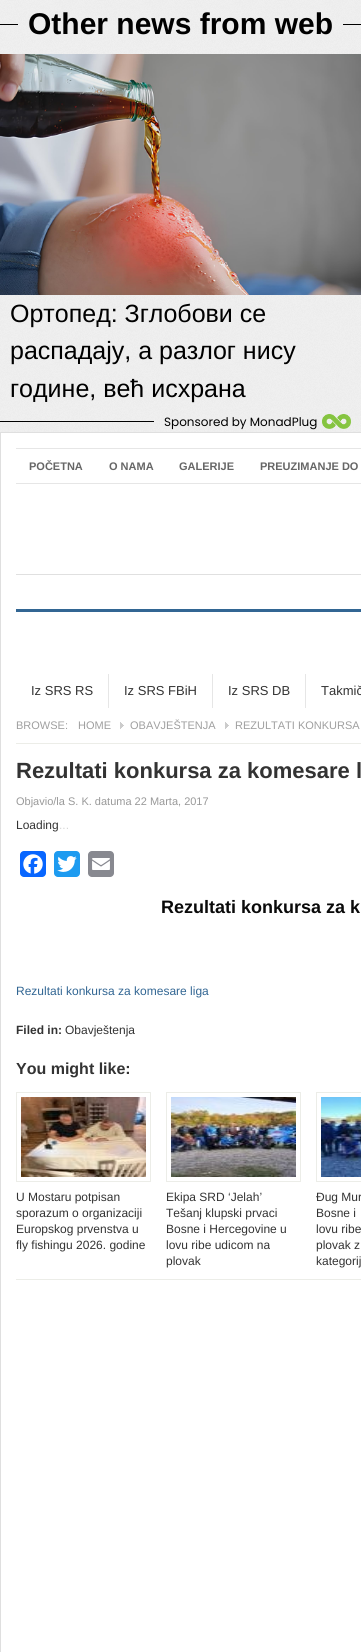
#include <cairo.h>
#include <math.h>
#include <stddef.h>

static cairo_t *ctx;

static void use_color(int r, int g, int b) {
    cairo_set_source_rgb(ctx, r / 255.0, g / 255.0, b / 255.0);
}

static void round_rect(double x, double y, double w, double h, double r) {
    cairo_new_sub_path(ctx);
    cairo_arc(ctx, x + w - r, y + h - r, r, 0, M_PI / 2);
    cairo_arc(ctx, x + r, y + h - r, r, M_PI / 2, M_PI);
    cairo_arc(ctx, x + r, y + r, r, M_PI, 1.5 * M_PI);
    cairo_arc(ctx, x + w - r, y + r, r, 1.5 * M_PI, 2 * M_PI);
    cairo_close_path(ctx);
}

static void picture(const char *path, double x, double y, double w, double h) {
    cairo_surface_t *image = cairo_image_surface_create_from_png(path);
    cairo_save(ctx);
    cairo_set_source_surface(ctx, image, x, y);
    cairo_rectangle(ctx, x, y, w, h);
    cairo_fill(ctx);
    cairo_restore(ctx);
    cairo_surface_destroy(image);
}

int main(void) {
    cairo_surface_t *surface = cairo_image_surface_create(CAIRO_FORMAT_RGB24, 361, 1652);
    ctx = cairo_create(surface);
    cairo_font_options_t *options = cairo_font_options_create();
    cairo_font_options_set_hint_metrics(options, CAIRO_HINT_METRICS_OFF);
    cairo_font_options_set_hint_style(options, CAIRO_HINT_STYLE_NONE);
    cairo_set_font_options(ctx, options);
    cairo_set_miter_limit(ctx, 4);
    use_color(255, 255, 255);
    cairo_paint(ctx);
    picture("img1.png", 0, 0, 361, 432);
    use_color(0, 0, 0);
    cairo_rectangle(ctx, 0, 24, 18, 1);
    cairo_fill(ctx);
    cairo_select_font_face(ctx, "Liberation Sans", CAIRO_FONT_SLANT_NORMAL, CAIRO_FONT_WEIGHT_BOLD);
    cairo_set_font_size(ctx, 30);
    cairo_move_to(ctx, 28, 34);
    cairo_show_text(ctx, "Other news from web");
    cairo_rectangle(ctx, 343, 24, 18, 1);
    cairo_fill(ctx);
    picture("img2.png", 0, 54, 361, 241);
    cairo_select_font_face(ctx, "Liberation Sans", CAIRO_FONT_SLANT_NORMAL, CAIRO_FONT_WEIGHT_NORMAL);
    cairo_set_font_size(ctx, 25);
    cairo_move_to(ctx, 10, 322);
    cairo_show_text(ctx, "Ортопед: Зглобови се");
    cairo_move_to(ctx, 10, 359);
    cairo_show_text(ctx, "распадају, а разлог нису");
    cairo_move_to(ctx, 10, 397);
    cairo_show_text(ctx, "године, већ исхрана");
    cairo_rectangle(ctx, 0, 421, 154, 1);
    cairo_fill(ctx);
    cairo_select_font_face(ctx, "Poppins", CAIRO_FONT_SLANT_NORMAL, CAIRO_FONT_WEIGHT_NORMAL);
    cairo_set_font_size(ctx, 12);
    cairo_move_to(ctx, 164, 426);
    cairo_show_text(ctx, "Sponsored by MonadPlug");
    picture("img3.png", 322, 414, 29, 15);
    cairo_rectangle(ctx, 0.5, 432.5, 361, 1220);
    use_color(223, 223, 223);
    cairo_set_line_width(ctx, 1);
    cairo_stroke(ctx);
    use_color(230, 230, 230);
    cairo_rectangle(ctx, 16, 448, 345, 1);
    cairo_fill(ctx);
    cairo_rectangle(ctx, 16, 483, 345, 1);
    cairo_fill(ctx);
    cairo_select_font_face(ctx, "Liberation Sans", CAIRO_FONT_SLANT_NORMAL, CAIRO_FONT_WEIGHT_BOLD);
    cairo_set_font_size(ctx, 11);
    use_color(102, 102, 102);
    cairo_move_to(ctx, 29, 470);
    cairo_show_text(ctx, "POČETNA");
    cairo_move_to(ctx, 109, 470);
    cairo_show_text(ctx, "O NAMA");
    cairo_move_to(ctx, 179, 470);
    cairo_show_text(ctx, "GALERIJE");
    cairo_move_to(ctx, 260, 470);
    cairo_show_text(ctx, "PREUZIMANJE DO");
    use_color(224, 224, 224);
    cairo_rectangle(ctx, 16, 574, 345, 1);
    cairo_fill(ctx);
    use_color(50, 102, 147);
    cairo_rectangle(ctx, 16, 609, 345, 3);
    cairo_fill(ctx);
    use_color(230, 230, 230);
    cairo_rectangle(ctx, 108, 674, 1, 34);
    cairo_fill(ctx);
    cairo_select_font_face(ctx, "Liberation Sans", CAIRO_FONT_SLANT_NORMAL, CAIRO_FONT_WEIGHT_NORMAL);
    cairo_set_font_size(ctx, 13);
    use_color(51, 51, 51);
    cairo_move_to(ctx, 31, 695);
    cairo_show_text(ctx, "Iz SRS RS");
    use_color(230, 230, 230);
    cairo_rectangle(ctx, 212, 674, 1, 34);
    cairo_fill(ctx);
    use_color(51, 51, 51);
    cairo_move_to(ctx, 124, 695);
    cairo_show_text(ctx, "Iz SRS FBiH");
    use_color(230, 230, 230);
    cairo_rectangle(ctx, 305, 674, 1, 34);
    cairo_fill(ctx);
    use_color(51, 51, 51);
    cairo_move_to(ctx, 228, 695);
    cairo_show_text(ctx, "Iz SRS DB");
    cairo_move_to(ctx, 321, 695);
    cairo_show_text(ctx, "Takmič");
    use_color(236, 237, 232);
    cairo_rectangle(ctx, 16, 743, 345, 1);
    cairo_fill(ctx);
    cairo_set_font_size(ctx, 11);
    use_color(159, 159, 159);
    cairo_move_to(ctx, 16, 729);
    cairo_show_text(ctx, "BROWSE:");
    cairo_move_to(ctx, 78, 729);
    cairo_show_text(ctx, "HOME");
    picture("img4.png", 120, 722, 4, 7);
    cairo_move_to(ctx, 130, 729);
    cairo_show_text(ctx, "OBAVJEŠTENJA");
    picture("img4.png", 225, 722, 4, 7);
    cairo_move_to(ctx, 235, 729);
    cairo_show_text(ctx, "REZULTATI KONKURSA");
    cairo_select_font_face(ctx, "Liberation Sans", CAIRO_FONT_SLANT_NORMAL, CAIRO_FONT_WEIGHT_BOLD);
    cairo_set_font_size(ctx, 22);
    use_color(51, 51, 51);
    cairo_move_to(ctx, 16, 778);
    cairo_show_text(ctx, "Rezultati konkursa za komesare l");
    cairo_select_font_face(ctx, "Liberation Sans", CAIRO_FONT_SLANT_NORMAL, CAIRO_FONT_WEIGHT_NORMAL);
    cairo_set_font_size(ctx, 11);
    use_color(153, 153, 153);
    cairo_move_to(ctx, 16, 805);
    cairo_show_text(ctx, "Objavio/la S. K. datuma 22 Marta, 2017");
    cairo_set_font_size(ctx, 12);
    use_color(51, 51, 51);
    cairo_move_to(ctx, 16, 829);
    cairo_show_text(ctx, "Loading");
    use_color(214, 214, 214);
    cairo_move_to(ctx, 59, 829);
    cairo_show_text(ctx, "...");
    use_color(8, 102, 255);
    round_rect(20, 851, 26, 26, 4);
    cairo_fill(ctx);
    picture("img5.png", 23, 854, 20, 20);
    use_color(29, 155, 240);
    round_rect(54, 851, 26, 26, 4);
    cairo_fill(ctx);
    picture("img6.png", 57, 856, 20, 16);
    use_color(136, 137, 144);
    round_rect(88, 851, 26, 26, 4);
    cairo_fill(ctx);
    picture("img7.png", 92, 858, 18, 12);
    cairo_select_font_face(ctx, "Liberation Sans", CAIRO_FONT_SLANT_NORMAL, CAIRO_FONT_WEIGHT_BOLD);
    cairo_set_font_size(ctx, 18);
    use_color(10, 10, 10);
    cairo_move_to(ctx, 161, 913);
    cairo_show_text(ctx, "Rezultati konkursa za k");
    cairo_select_font_face(ctx, "Liberation Sans", CAIRO_FONT_SLANT_NORMAL, CAIRO_FONT_WEIGHT_NORMAL);
    cairo_set_font_size(ctx, 12);
    use_color(50, 102, 147);
    cairo_move_to(ctx, 16, 995);
    cairo_show_text(ctx, "Rezultati konkursa za komesare liga");
    cairo_select_font_face(ctx, "Liberation Sans", CAIRO_FONT_SLANT_NORMAL, CAIRO_FONT_WEIGHT_BOLD);
    use_color(51, 51, 51);
    cairo_move_to(ctx, 16, 1034);
    cairo_show_text(ctx, "Filed in:");
    cairo_select_font_face(ctx, "Liberation Sans", CAIRO_FONT_SLANT_NORMAL, CAIRO_FONT_WEIGHT_NORMAL);
    cairo_move_to(ctx, 65, 1034);
    cairo_show_text(ctx, "Obavještenja");
    use_color(236, 237, 232);
    cairo_rectangle(ctx, 16, 1279, 345, 1);
    cairo_fill(ctx);
    cairo_select_font_face(ctx, "Liberation Sans", CAIRO_FONT_SLANT_NORMAL, CAIRO_FONT_WEIGHT_BOLD);
    cairo_set_font_size(ctx, 16);
    use_color(51, 51, 51);
    cairo_move_to(ctx, 16, 1074);
    cairo_show_text(ctx, "You might like:");
    cairo_rectangle(ctx, 16.5, 1092.5, 134, 89);
    use_color(236, 237, 232);
    cairo_stroke(ctx);
    picture("img8.png", 21, 1097, 125, 80);
    cairo_select_font_face(ctx, "Liberation Sans", CAIRO_FONT_SLANT_NORMAL, CAIRO_FONT_WEIGHT_NORMAL);
    cairo_set_font_size(ctx, 12);
    use_color(51, 51, 51);
    cairo_move_to(ctx, 16, 1201);
    cairo_show_text(ctx, "U Mostaru potpisan");
    cairo_move_to(ctx, 16, 1217);
    cairo_show_text(ctx, "sporazum o organizaciji");
    cairo_move_to(ctx, 16, 1233);
    cairo_show_text(ctx, "Europskog prvenstva u");
    cairo_move_to(ctx, 16, 1249);
    cairo_show_text(ctx, "fly fishingu 2026. godine");
    cairo_rectangle(ctx, 166.5, 1092.5, 134, 89);
    use_color(236, 237, 232);
    cairo_stroke(ctx);
    picture("img9.png", 171, 1097, 125, 80);
    use_color(51, 51, 51);
    cairo_move_to(ctx, 166, 1201);
    cairo_show_text(ctx, "Ekipa SRD ‘Jelah’");
    cairo_move_to(ctx, 166, 1217);
    cairo_show_text(ctx, "Tešanj klupski prvaci");
    cairo_move_to(ctx, 166, 1233);
    cairo_show_text(ctx, "Bosne i Hercegovine u");
    cairo_move_to(ctx, 166, 1249);
    cairo_show_text(ctx, "lovu ribe udicom na");
    cairo_move_to(ctx, 166, 1265);
    cairo_show_text(ctx, "plovak");
    cairo_rectangle(ctx, 316.5, 1092.5, 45, 89);
    use_color(236, 237, 232);
    cairo_stroke(ctx);
    picture("img10.png", 321, 1097, 40, 80);
    use_color(51, 51, 51);
    cairo_move_to(ctx, 316, 1201);
    cairo_show_text(ctx, "Đug Mur");
    cairo_move_to(ctx, 316, 1217);
    cairo_show_text(ctx, "Bosne i");
    cairo_move_to(ctx, 316, 1233);
    cairo_show_text(ctx, "lovu ribe");
    cairo_move_to(ctx, 316, 1249);
    cairo_show_text(ctx, "plovak z");
    cairo_move_to(ctx, 316, 1265);
    cairo_show_text(ctx, "kategorij");
    cairo_surface_write_to_png(surface, "result.png");
    cairo_font_options_destroy(options);
    cairo_destroy(ctx);
    cairo_surface_destroy(surface);
    return 0;
}
